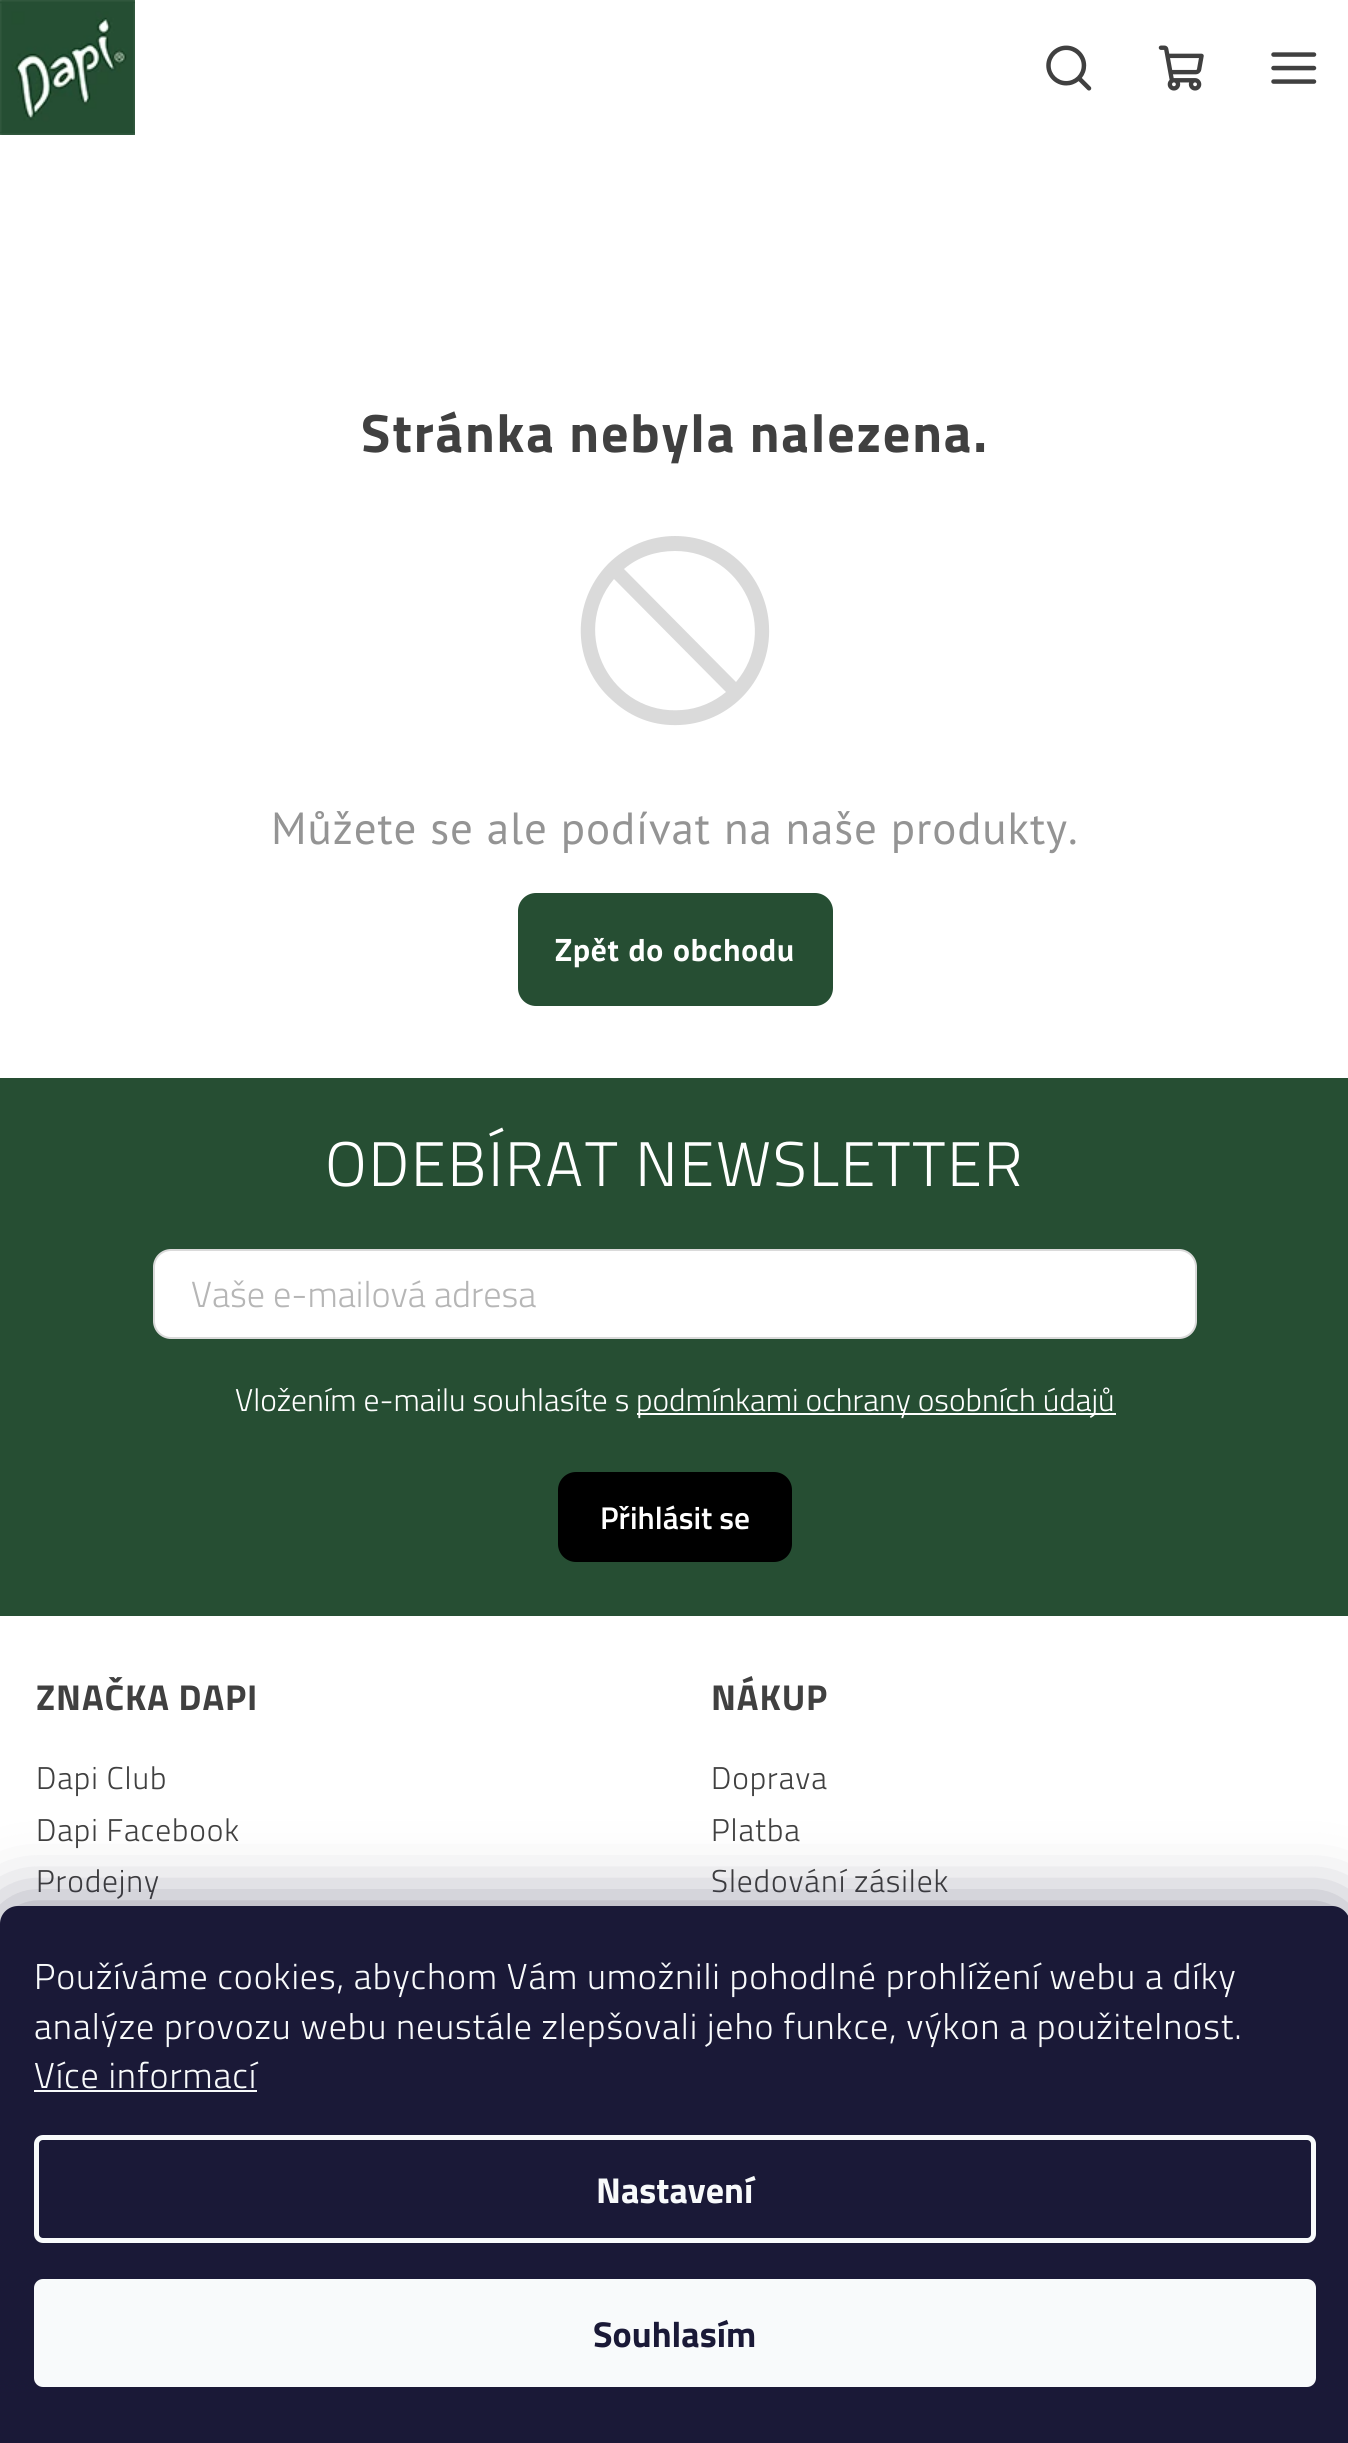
#include <cairo.h>
#include <math.h>
#include <stddef.h>

static cairo_t *ctx;

static void use_color(int r, int g, int b) {
    cairo_set_source_rgb(ctx, r / 255.0, g / 255.0, b / 255.0);
}

static void spaced_text(double x, double y, const char *s, double letter, double word) {
    cairo_move_to(ctx, x, y);
    while (*s) {
        char ch[5] = {0};
        int n = 0;
        do ch[n++] = *s++; while ((*s & 0xC0) == 0x80);
        cairo_show_text(ctx, ch);
        cairo_rel_move_to(ctx, letter + word * (*ch == ' '), 0);
    }
}

static void round_rect(double x, double y, double w, double h, double r) {
    cairo_new_sub_path(ctx);
    cairo_arc(ctx, x + w - r, y + h - r, r, 0, M_PI / 2);
    cairo_arc(ctx, x + r, y + h - r, r, M_PI / 2, M_PI);
    cairo_arc(ctx, x + r, y + r, r, M_PI, 1.5 * M_PI);
    cairo_arc(ctx, x + w - r, y + r, r, 1.5 * M_PI, 2 * M_PI);
    cairo_close_path(ctx);
}

static void shadow(double x, double y, double w, double h, double r, double blur, double alpha) {
    cairo_push_group_with_content(ctx, CAIRO_CONTENT_ALPHA);
    cairo_set_operator(ctx, CAIRO_OPERATOR_SOURCE);
    for (int i = 15; i >= -15 && fmin(w, h) + blur * i / 3 > 0; i -= 2) {
        double e = blur * i / 6;
        cairo_set_source_rgba(ctx, 0, 0, 0, alpha * erfc((i - 1) / 8.5) / 2);
        round_rect(x - e, y - e, w + 2 * e, h + 2 * e, fmax(0, fmin(r + e + blur * .6, fmin(w, h) / 2 + e)));
        cairo_fill(ctx);
    }
    cairo_pattern_t *soft = cairo_pop_group(ctx);
    cairo_mask(ctx, soft);
    cairo_pattern_destroy(soft);
}

static void picture(const char *path, double x, double y, double w, double h) {
    cairo_surface_t *image = cairo_image_surface_create_from_png(path);
    cairo_save(ctx);
    cairo_set_source_surface(ctx, image, x, y);
    cairo_rectangle(ctx, x, y, w, h);
    cairo_fill(ctx);
    cairo_restore(ctx);
    cairo_surface_destroy(image);
}

int main(void) {
    cairo_surface_t *surface = cairo_image_surface_create(CAIRO_FORMAT_RGB24, 1348, 2443);
    ctx = cairo_create(surface);
    cairo_font_options_t *options = cairo_font_options_create();
    cairo_font_options_set_hint_metrics(options, CAIRO_HINT_METRICS_OFF);
    cairo_font_options_set_hint_style(options, CAIRO_HINT_STYLE_NONE);
    cairo_set_font_options(ctx, options);
    cairo_set_miter_limit(ctx, 4);
    use_color(255, 255, 255);
    cairo_paint(ctx);
    picture("img1.png", 0, 0, 135, 135);
    picture("img2.png", 1046, 45, 46, 46);
    picture("img3.png", 1158, 45, 46, 46);
    picture("img4.png", 1271, 52, 46, 32);
    cairo_select_font_face(ctx, "Titillium Web", CAIRO_FONT_SLANT_NORMAL, CAIRO_FONT_WEIGHT_BOLD);
    cairo_set_font_size(ctx, 54);
    use_color(64, 64, 64);
    spaced_text(361, 452, "Stránka nebyla nalezena.", 1.8, 0);
    use_color(218, 218, 218);
    cairo_new_path(ctx);
    cairo_move_to(ctx, 675, 536);
    cairo_curve_to(ctx, 650, 536, 626, 546, 608, 564);
    cairo_curve_to(ctx, 571, 602, 571, 664, 612, 700);
    cairo_curve_to(ctx, 628, 715, 648, 724, 670, 725);
    cairo_curve_to(ctx, 726, 728, 772, 682, 769, 626);
    cairo_curve_to(ctx, 768, 604, 759, 583, 745, 567);
    cairo_curve_to(ctx, 727, 547, 702, 536, 675, 536);
    cairo_close_path(ctx);
    cairo_move_to(ctx, 675, 551);
    cairo_curve_to(ctx, 742, 551, 780, 630, 736, 682);
    cairo_line_to(ctx, 624, 569);
    cairo_curve_to(ctx, 638, 557, 656, 551, 675, 551);
    cairo_close_path(ctx);
    cairo_move_to(ctx, 614, 579);
    cairo_line_to(ctx, 726, 692);
    cairo_curve_to(ctx, 714, 702, 698, 709, 682, 710);
    cairo_curve_to(ctx, 612, 716, 568, 634, 614, 579);
    cairo_close_path(ctx);
    cairo_fill(ctx);
    cairo_select_font_face(ctx, "PT Sans", CAIRO_FONT_SLANT_NORMAL, CAIRO_FONT_WEIGHT_NORMAL);
    cairo_set_font_size(ctx, 45);
    use_color(148, 148, 148);
    spaced_text(271, 844, "Můžete se ale podívat na naše produkty.", 0.9, 0);
    use_color(38, 78, 51);
    round_rect(519, 894, 313, 111, 17);
    cairo_fill_preserve(ctx);
    cairo_stroke(ctx);
    cairo_select_font_face(ctx, "PT Sans", CAIRO_FONT_SLANT_NORMAL, CAIRO_FONT_WEIGHT_BOLD);
    cairo_set_font_size(ctx, 31.5);
    use_color(255, 255, 255);
    spaced_text(555, 961, "Zpět do obchodu", 0.9, 0);
    use_color(38, 78, 51);
    cairo_rectangle(ctx, 0, 1078, 1348, 538);
    cairo_fill(ctx);
    cairo_select_font_face(ctx, "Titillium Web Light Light", CAIRO_FONT_SLANT_NORMAL, CAIRO_FONT_WEIGHT_NORMAL);
    cairo_set_font_size(ctx, 63);
    use_color(255, 255, 255);
    spaced_text(325, 1186, "ODEBÍRAT NEWSLETTER", 1.8, 0);
    round_rect(154, 1250, 1042, 88, 17);
    cairo_fill_preserve(ctx);
    use_color(218, 218, 218);
    cairo_stroke(ctx);
    cairo_set_font_size(ctx, 36.25);
    use_color(182, 182, 182);
    cairo_move_to(ctx, 191, 1307);
    cairo_show_text(ctx, "Vaše e-mailová adresa");
    cairo_set_font_size(ctx, 31.5);
    use_color(255, 255, 255);
    cairo_move_to(ctx, 235, 1411);
    cairo_show_text(ctx, "Vložením e-mailu souhlasíte s");
    cairo_rectangle(ctx, 637, 1413, 479, 2);
    cairo_fill(ctx);
    cairo_move_to(ctx, 636, 1411);
    cairo_show_text(ctx, "podmínkami ochrany osobních údajů");
    use_color(0, 0, 0);
    round_rect(559, 1473, 232, 88, 17);
    cairo_fill_preserve(ctx);
    cairo_stroke(ctx);
    cairo_select_font_face(ctx, "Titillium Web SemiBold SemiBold", CAIRO_FONT_SLANT_NORMAL, CAIRO_FONT_WEIGHT_NORMAL);
    use_color(255, 255, 255);
    cairo_move_to(ctx, 600, 1529);
    cairo_show_text(ctx, "Přihlásit se");
    cairo_select_font_face(ctx, "Titillium Web", CAIRO_FONT_SLANT_NORMAL, CAIRO_FONT_WEIGHT_BOLD);
    cairo_set_font_size(ctx, 36);
    use_color(64, 64, 64);
    spaced_text(36, 1710, "ZNAČKA DAPI", 0.9, 0);
    cairo_select_font_face(ctx, "Titillium Web Light Light", CAIRO_FONT_SLANT_NORMAL, CAIRO_FONT_WEIGHT_NORMAL);
    cairo_set_font_size(ctx, 31.5);
    spaced_text(36, 1789, "Dapi Club", 0.9, 0);
    spaced_text(36, 1841, "Dapi Facebook", 0.9, 0);
    spaced_text(36, 1892, "Prodejny", 0.9, 0);
    cairo_select_font_face(ctx, "Titillium Web", CAIRO_FONT_SLANT_NORMAL, CAIRO_FONT_WEIGHT_BOLD);
    cairo_set_font_size(ctx, 36);
    spaced_text(711, 1710, "NÁKUP", 0.9, 0);
    cairo_select_font_face(ctx, "Titillium Web Light Light", CAIRO_FONT_SLANT_NORMAL, CAIRO_FONT_WEIGHT_NORMAL);
    cairo_set_font_size(ctx, 31.5);
    spaced_text(711, 1789, "Doprava", 0.9, 0);
    spaced_text(711, 1841, "Platba", 0.9, 0);
    spaced_text(711, 1892, "Sledování zásilek", 0.9, 0);
    use_color(27, 25, 57);
    shadow(0, 1906, 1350, 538, 18, 34, 0.5);
    use_color(26, 25, 55);
    cairo_new_path(ctx);
    cairo_move_to(ctx, 18, 1906);
    cairo_line_to(ctx, 1332, 1906);
    cairo_curve_to(ctx, 1342, 1906, 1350, 1914, 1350, 1924);
    cairo_line_to(ctx, 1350, 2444);
    cairo_line_to(ctx, 0, 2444);
    cairo_line_to(ctx, 0, 1924);
    cairo_curve_to(ctx, 0, 1914, 8, 1906, 18, 1906);
    cairo_close_path(ctx);
    cairo_fill(ctx);
    cairo_set_font_size(ctx, 36);
    use_color(248, 250, 251);
    spaced_text(34, 1989, "Používáme cookies, abychom Vám umožnili pohodlné prohlížení webu a díky", 0.9, 0);
    spaced_text(34, 2039, "analýze provozu webu neustále zlepšovali jeho funkce, výkon a použitelnost.", 0.9, 0);
    spaced_text(34, 2088, "Více informací", 0.9, 0);
    cairo_rectangle(ctx, 34, 2090, 223, 2);
    cairo_fill(ctx);
    round_rect(36.5, 2137.5, 1277, 103, 6.5);
    cairo_set_line_width(ctx, 5);
    cairo_stroke(ctx);
    cairo_select_font_face(ctx, "Titillium Web", CAIRO_FONT_SLANT_NORMAL, CAIRO_FONT_WEIGHT_BOLD);
    cairo_move_to(ctx, 596, 2203);
    cairo_show_text(ctx, "Nastavení");
    round_rect(34, 2279, 1282, 108, 9);
    cairo_fill(ctx);
    use_color(26, 25, 55);
    cairo_move_to(ctx, 593, 2347);
    cairo_show_text(ctx, "Souhlasím");
    cairo_surface_write_to_png(surface, "result.png");
    cairo_font_options_destroy(options);
    cairo_destroy(ctx);
    cairo_surface_destroy(surface);
    return 0;
}
